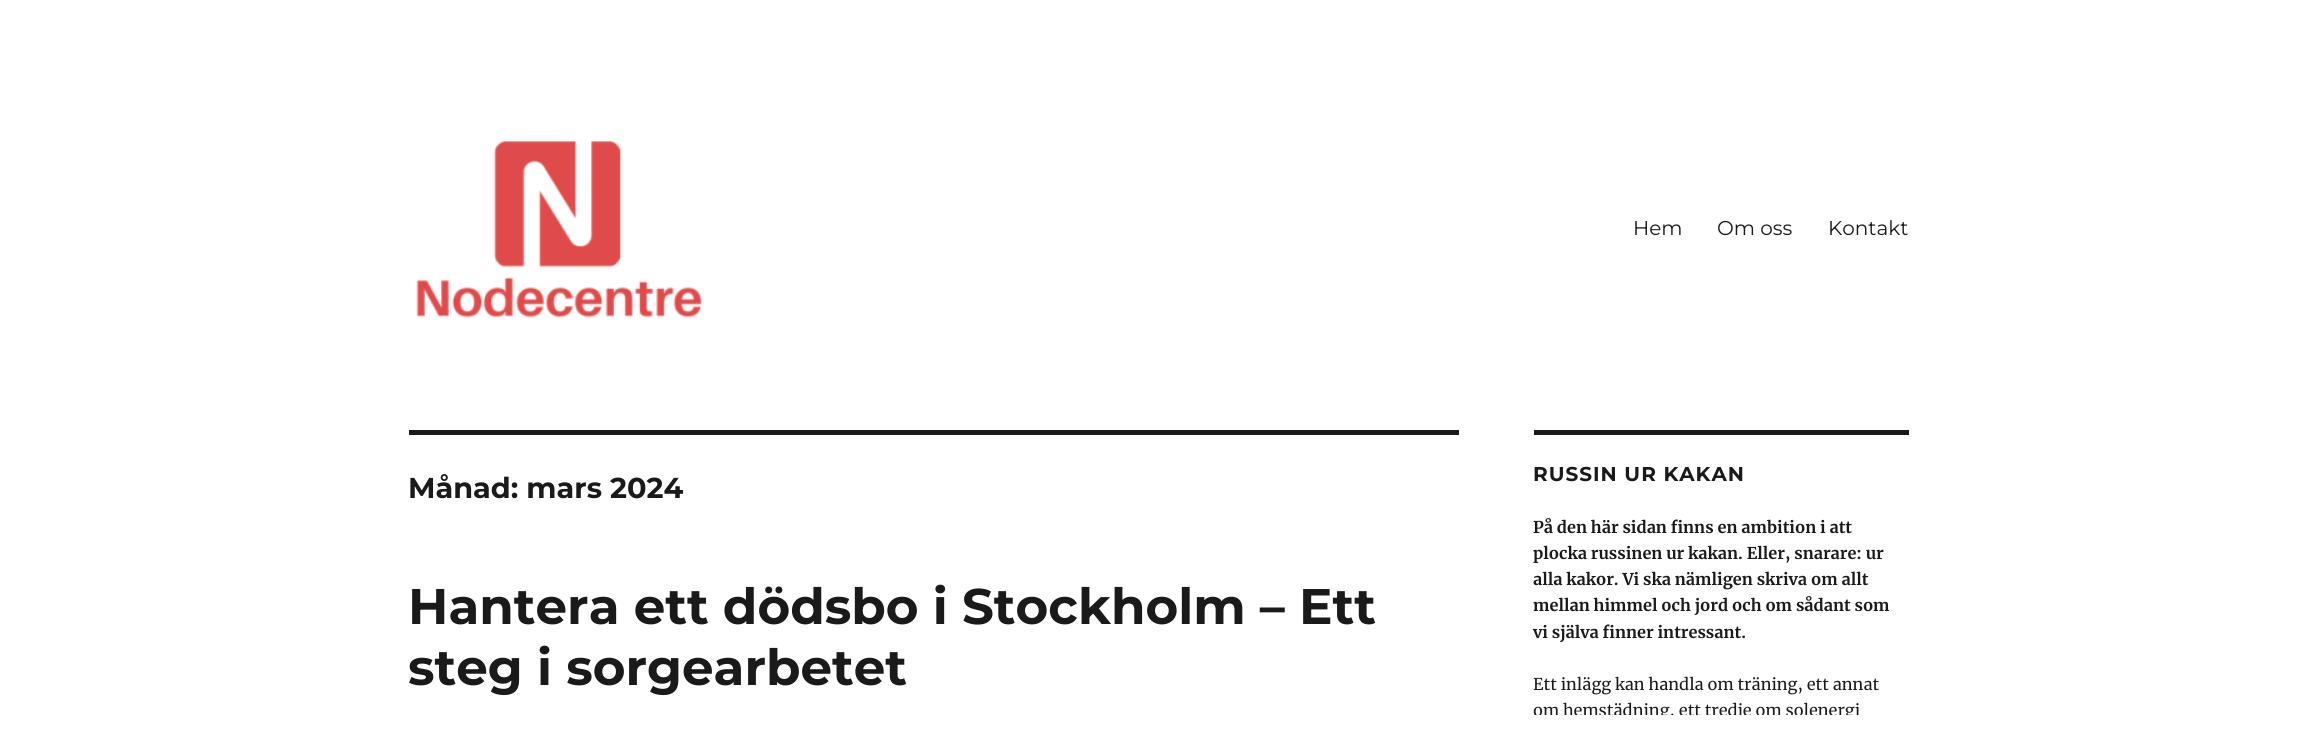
#include <cairo.h>
#include <math.h>
#include <stddef.h>

static cairo_t *ctx;

static void use_color(int r, int g, int b) {
    cairo_set_source_rgb(ctx, r / 255.0, g / 255.0, b / 255.0);
}

static void spaced_text(double x, double y, const char *s, double letter, double word) {
    cairo_move_to(ctx, x, y);
    while (*s) {
        char ch[5] = {0};
        int n = 0;
        do ch[n++] = *s++; while ((*s & 0xC0) == 0x80);
        cairo_show_text(ctx, ch);
        cairo_rel_move_to(ctx, letter + word * (*ch == ' '), 0);
    }
}

static void picture(const char *path, double x, double y, double w, double h) {
    cairo_surface_t *image = cairo_image_surface_create_from_png(path);
    cairo_save(ctx);
    cairo_set_source_surface(ctx, image, x, y);
    cairo_rectangle(ctx, x, y, w, h);
    cairo_fill(ctx);
    cairo_restore(ctx);
    cairo_surface_destroy(image);
}

int main(void) {
    cairo_surface_t *surface = cairo_image_surface_create(CAIRO_FORMAT_RGB24, 2316, 741);
    ctx = cairo_create(surface);
    cairo_font_options_t *options = cairo_font_options_create();
    cairo_font_options_set_hint_metrics(options, CAIRO_HINT_METRICS_OFF);
    cairo_font_options_set_hint_style(options, CAIRO_HINT_STYLE_NONE);
    cairo_set_font_options(ctx, options);
    cairo_set_miter_limit(ctx, 4);
    use_color(255, 255, 255);
    cairo_paint(ctx);
    picture("img1.png", 416, 141, 287, 177);
    cairo_select_font_face(ctx, "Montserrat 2 Thin", CAIRO_FONT_SLANT_NORMAL, CAIRO_FONT_WEIGHT_NORMAL);
    cairo_set_font_size(ctx, 20);
    use_color(26, 26, 26);
    cairo_move_to(ctx, 1633, 235);
    cairo_show_text(ctx, "Hem");
    cairo_move_to(ctx, 1717, 235);
    cairo_show_text(ctx, "Om oss");
    cairo_move_to(ctx, 1828, 235);
    cairo_show_text(ctx, "Kontakt");
    cairo_rectangle(ctx, 409, 430, 1050, 5);
    cairo_fill(ctx);
    cairo_select_font_face(ctx, "Montserrat Thin", CAIRO_FONT_SLANT_NORMAL, CAIRO_FONT_WEIGHT_NORMAL);
    cairo_set_font_size(ctx, 28.75);
    cairo_move_to(ctx, 408, 498);
    cairo_show_text(ctx, "Månad: mars 2024");
    cairo_set_font_size(ctx, 50);
    cairo_move_to(ctx, 408, 624);
    cairo_show_text(ctx, "Hantera ett dödsbo i Stockholm – Ett");
    cairo_move_to(ctx, 408, 685);
    cairo_show_text(ctx, "steg i sorgearbetet");
    cairo_rectangle(ctx, 1534, 430, 375, 5);
    cairo_fill(ctx);
    cairo_set_font_size(ctx, 20);
    spaced_text(1533, 481, "RUSSIN UR KAKAN", 1, 0);
    cairo_select_font_face(ctx, "Merriweather", CAIRO_FONT_SLANT_NORMAL, CAIRO_FONT_WEIGHT_BOLD);
    cairo_set_font_size(ctx, 16.25);
    cairo_move_to(ctx, 1533, 533);
    cairo_show_text(ctx, "På den här sidan finns en ambition i att");
    cairo_move_to(ctx, 1533, 559);
    cairo_show_text(ctx, "plocka russinen ur kakan. Eller, snarare: ur");
    cairo_move_to(ctx, 1533, 585);
    cairo_show_text(ctx, "alla kakor. Vi ska nämligen skriva om allt");
    cairo_move_to(ctx, 1533, 611);
    cairo_show_text(ctx, "mellan himmel och jord och om sådant som");
    cairo_move_to(ctx, 1533, 638);
    cairo_show_text(ctx, "vi själva finner intressant.");
    cairo_select_font_face(ctx, "Merriweather", CAIRO_FONT_SLANT_NORMAL, CAIRO_FONT_WEIGHT_NORMAL);
    cairo_move_to(ctx, 1533, 690);
    cairo_show_text(ctx, "Ett inlägg kan handla om träning, ett annat");
    cairo_move_to(ctx, 1533, 716);
    cairo_show_text(ctx, "om hemstädning, ett tredje om solenergi");
    use_color(255, 255, 255);
    cairo_rectangle(ctx, 1535, 715, 325, 6);
    cairo_fill(ctx);
    cairo_surface_write_to_png(surface, "result.png");
    cairo_font_options_destroy(options);
    cairo_destroy(ctx);
    cairo_surface_destroy(surface);
    return 0;
}
